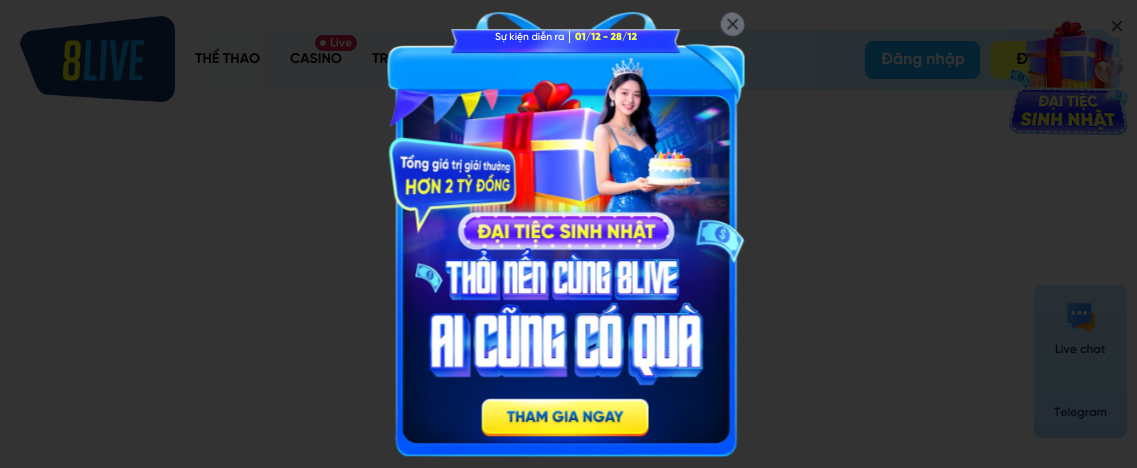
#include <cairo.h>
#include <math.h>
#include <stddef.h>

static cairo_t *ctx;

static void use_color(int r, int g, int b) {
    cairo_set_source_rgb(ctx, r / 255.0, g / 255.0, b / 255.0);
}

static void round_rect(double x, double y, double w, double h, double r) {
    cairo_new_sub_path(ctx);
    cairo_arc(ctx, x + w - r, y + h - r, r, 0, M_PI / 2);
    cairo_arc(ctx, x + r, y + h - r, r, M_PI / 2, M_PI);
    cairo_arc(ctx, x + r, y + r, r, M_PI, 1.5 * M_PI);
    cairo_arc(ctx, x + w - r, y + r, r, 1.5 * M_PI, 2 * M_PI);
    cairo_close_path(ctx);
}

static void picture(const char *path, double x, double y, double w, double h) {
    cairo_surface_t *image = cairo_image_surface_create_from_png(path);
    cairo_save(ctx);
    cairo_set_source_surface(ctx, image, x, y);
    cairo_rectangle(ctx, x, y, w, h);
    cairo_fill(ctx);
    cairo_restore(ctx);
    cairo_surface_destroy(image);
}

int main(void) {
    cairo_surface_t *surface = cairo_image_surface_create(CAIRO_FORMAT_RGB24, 1137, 468);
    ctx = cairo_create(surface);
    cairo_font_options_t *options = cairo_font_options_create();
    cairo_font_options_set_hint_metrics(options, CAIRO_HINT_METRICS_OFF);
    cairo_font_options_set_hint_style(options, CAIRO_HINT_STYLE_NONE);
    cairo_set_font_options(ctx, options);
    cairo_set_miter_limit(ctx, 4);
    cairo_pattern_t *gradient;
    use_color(51, 51, 51);
    cairo_paint(ctx);
    gradient = cairo_pattern_create_linear(1120, 60, 170, 60);
    cairo_pattern_add_color_stop_rgba(gradient, 0, 0.145, 0.18, 0.2, 1);
    cairo_pattern_add_color_stop_rgba(gradient, 1, 0.2, 0.2, 0.2, 1);
    cairo_set_source(ctx, gradient);
    cairo_pattern_destroy(gradient);
    round_rect(170, 30, 950, 60, 8);
    cairo_fill(ctx);
    cairo_select_font_face(ctx, "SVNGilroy", CAIRO_FONT_SLANT_NORMAL, CAIRO_FONT_WEIGHT_BOLD);
    cairo_set_font_size(ctx, 14);
    use_color(4, 4, 4);
    cairo_move_to(ctx, 372, 63);
    cairo_show_text(ctx, "TR");
    picture("img1.png", 387, 12, 358, 446);
    cairo_select_font_face(ctx, "SVNGilroy SemiBold", CAIRO_FONT_SLANT_NORMAL, CAIRO_FONT_WEIGHT_NORMAL);
    cairo_set_font_size(ctx, 10.25);
    use_color(255, 255, 255);
    cairo_move_to(ctx, 495, 40);
    cairo_show_text(ctx, "Sự kiện diễn ra");
    cairo_rectangle(ctx, 569, 31, 1, 12);
    cairo_fill(ctx);
    cairo_select_font_face(ctx, "SVNGilroy Black", CAIRO_FONT_SLANT_NORMAL, CAIRO_FONT_WEIGHT_NORMAL);
    use_color(247, 255, 74);
    cairo_move_to(ctx, 575, 40);
    cairo_show_text(ctx, "01/12 - 28/12");
    picture("img2.png", 720, 12, 25, 25);
    picture("img3.png", 20, 16, 155, 86);
    cairo_select_font_face(ctx, "SVNGilroy", CAIRO_FONT_SLANT_NORMAL, CAIRO_FONT_WEIGHT_BOLD);
    cairo_set_font_size(ctx, 14);
    use_color(4, 4, 4);
    cairo_move_to(ctx, 195, 63);
    cairo_show_text(ctx, "THỂ THAO");
    picture("img4.png", 315, 35, 42, 16);
    cairo_move_to(ctx, 290, 63);
    cairo_show_text(ctx, "CASINO");
    use_color(4, 34, 50);
    round_rect(865, 41, 115, 38, 8);
    cairo_fill(ctx);
    cairo_set_font_size(ctx, 16);
    use_color(51, 51, 51);
    cairo_move_to(ctx, 881, 64);
    cairo_show_text(ctx, "Đăng nhập");
    use_color(49, 51, 15);
    round_rect(990, 41, 115, 38, 8);
    cairo_fill(ctx);
    use_color(4, 4, 4);
    cairo_move_to(ctx, 1016, 64);
    cairo_show_text(ctx, "Đ");
    picture("img6.png", 1009, 21, 120, 114);
    picture("img5.png", 1105, 14, 24, 24);
    gradient = cairo_pattern_create_linear(1081, 285, 1081, 438);
    cairo_pattern_add_color_stop_rgba(gradient, 0, 0.157, 0.184, 0.2, 1);
    cairo_pattern_add_color_stop_rgba(gradient, 1, 0.133, 0.176, 0.2, 1);
    cairo_set_source(ctx, gradient);
    cairo_pattern_destroy(gradient);
    round_rect(1034, 285, 93, 153, 8);
    cairo_fill(ctx);
    picture("img7.png", 1065, 301, 32, 32);
    cairo_select_font_face(ctx, "SVNGilroy SemiBold", CAIRO_FONT_SLANT_NORMAL, CAIRO_FONT_WEIGHT_NORMAL);
    cairo_set_font_size(ctx, 12);
    use_color(5, 11, 20);
    cairo_move_to(ctx, 1055, 353);
    cairo_show_text(ctx, "Live chat");
    cairo_move_to(ctx, 1054, 416);
    cairo_show_text(ctx, "Telegram");
    cairo_surface_write_to_png(surface, "result.png");
    cairo_font_options_destroy(options);
    cairo_destroy(ctx);
    cairo_surface_destroy(surface);
    return 0;
}
